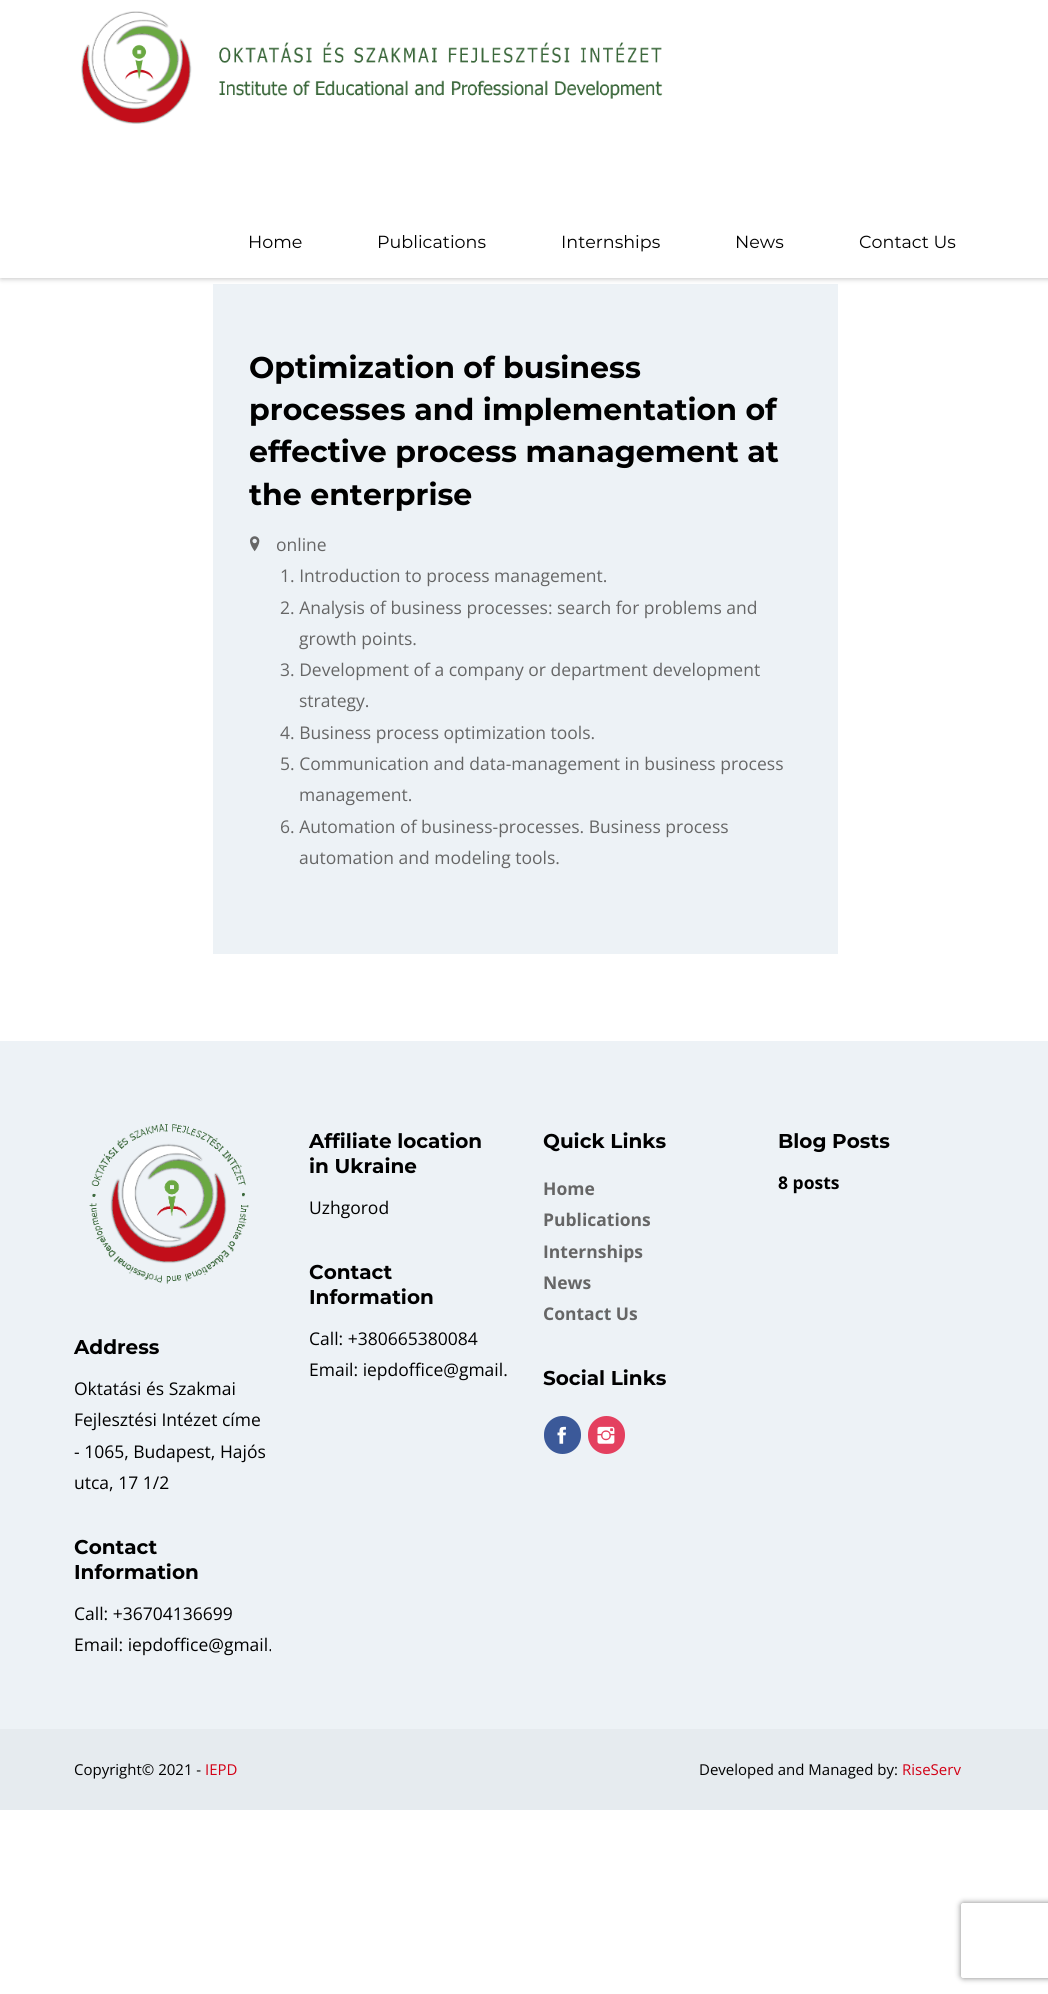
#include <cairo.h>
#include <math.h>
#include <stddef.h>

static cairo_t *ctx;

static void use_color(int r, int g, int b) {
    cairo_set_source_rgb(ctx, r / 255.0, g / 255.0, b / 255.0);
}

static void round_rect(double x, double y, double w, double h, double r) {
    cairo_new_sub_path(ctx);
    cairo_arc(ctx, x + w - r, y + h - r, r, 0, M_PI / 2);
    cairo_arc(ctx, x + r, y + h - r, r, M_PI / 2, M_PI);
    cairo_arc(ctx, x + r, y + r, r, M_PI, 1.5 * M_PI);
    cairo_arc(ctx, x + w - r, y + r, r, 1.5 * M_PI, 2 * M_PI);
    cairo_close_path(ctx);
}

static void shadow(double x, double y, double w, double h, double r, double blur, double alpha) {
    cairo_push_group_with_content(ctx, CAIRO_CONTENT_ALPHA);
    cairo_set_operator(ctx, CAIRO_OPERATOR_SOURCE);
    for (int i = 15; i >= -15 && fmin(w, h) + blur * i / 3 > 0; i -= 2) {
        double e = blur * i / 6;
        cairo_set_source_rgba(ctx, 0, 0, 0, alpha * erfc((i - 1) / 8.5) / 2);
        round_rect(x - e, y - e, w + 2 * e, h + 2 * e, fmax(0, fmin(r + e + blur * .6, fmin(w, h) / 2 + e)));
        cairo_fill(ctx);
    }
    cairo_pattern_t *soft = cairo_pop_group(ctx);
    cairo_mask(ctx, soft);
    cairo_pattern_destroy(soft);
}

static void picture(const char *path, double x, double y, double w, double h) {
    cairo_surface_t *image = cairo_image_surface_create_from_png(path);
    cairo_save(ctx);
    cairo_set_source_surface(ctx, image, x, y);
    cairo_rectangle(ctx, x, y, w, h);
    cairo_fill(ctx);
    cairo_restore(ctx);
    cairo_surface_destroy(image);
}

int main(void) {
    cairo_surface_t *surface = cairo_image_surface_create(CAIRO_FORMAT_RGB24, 1048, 1994);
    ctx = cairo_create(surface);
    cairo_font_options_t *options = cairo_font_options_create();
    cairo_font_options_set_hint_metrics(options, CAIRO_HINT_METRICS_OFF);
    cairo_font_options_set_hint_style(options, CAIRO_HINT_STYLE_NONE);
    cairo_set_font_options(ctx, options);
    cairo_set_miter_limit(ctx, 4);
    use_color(255, 255, 255);
    cairo_paint(ctx);
    use_color(237, 242, 246);
    cairo_rectangle(ctx, 213, 284, 625, 670);
    cairo_fill(ctx);
    use_color(0, 0, 0);
    shadow(1, 0, 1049, 278, 0, 3, 0.3);
    use_color(255, 255, 255);
    cairo_rectangle(ctx, 0, 0, 1048, 278);
    cairo_fill(ctx);
    picture("img1.png", 81, 11, 582, 113);
    cairo_select_font_face(ctx, "Montserrat", CAIRO_FONT_SLANT_NORMAL, CAIRO_FONT_WEIGHT_NORMAL);
    cairo_set_font_size(ctx, 17.5);
    use_color(0, 0, 0);
    cairo_move_to(ctx, 248, 248);
    cairo_show_text(ctx, "Home");
    cairo_move_to(ctx, 377, 248);
    cairo_show_text(ctx, "Publications");
    cairo_move_to(ctx, 561, 248);
    cairo_show_text(ctx, "Internships");
    cairo_move_to(ctx, 735, 248);
    cairo_show_text(ctx, "News");
    cairo_move_to(ctx, 859, 248);
    cairo_show_text(ctx, "Contact Us");
    cairo_select_font_face(ctx, "Montserrat", CAIRO_FONT_SLANT_NORMAL, CAIRO_FONT_WEIGHT_BOLD);
    cairo_set_font_size(ctx, 30);
    cairo_move_to(ctx, 249, 378);
    cairo_show_text(ctx, "Optimization of business");
    cairo_move_to(ctx, 249, 420);
    cairo_show_text(ctx, "processes and implementation of");
    cairo_move_to(ctx, 249, 462);
    cairo_show_text(ctx, "effective process management at");
    cairo_move_to(ctx, 249, 505);
    cairo_show_text(ctx, "the enterprise");
    picture("img2.png", 250, 536, 10, 16);
    cairo_select_font_face(ctx, "Open Sans", CAIRO_FONT_SLANT_NORMAL, CAIRO_FONT_WEIGHT_NORMAL);
    cairo_set_font_size(ctx, 17.5);
    use_color(102, 102, 102);
    cairo_move_to(ctx, 276, 551);
    cairo_show_text(ctx, "online");
    cairo_move_to(ctx, 280, 582);
    cairo_show_text(ctx, "1. Introduction to process management.");
    cairo_move_to(ctx, 280, 614);
    cairo_show_text(ctx, "2. Analysis of business processes: search for problems and");
    cairo_move_to(ctx, 299, 645);
    cairo_show_text(ctx, "growth points.");
    cairo_move_to(ctx, 280, 676);
    cairo_show_text(ctx, "3. Development of a company or department development");
    cairo_move_to(ctx, 299, 707);
    cairo_show_text(ctx, "strategy.");
    cairo_move_to(ctx, 280, 739);
    cairo_show_text(ctx, "4. Business process optimization tools.");
    cairo_move_to(ctx, 280, 770);
    cairo_show_text(ctx, "5. Communication and data-management in business process");
    cairo_move_to(ctx, 299, 801);
    cairo_show_text(ctx, "management.");
    cairo_move_to(ctx, 280, 833);
    cairo_show_text(ctx, "6. Automation of business-processes. Business process");
    cairo_move_to(ctx, 299, 864);
    cairo_show_text(ctx, "automation and modeling tools.");
    use_color(237, 242, 246);
    cairo_rectangle(ctx, 0, 1041, 1048, 688);
    cairo_fill(ctx);
    cairo_select_font_face(ctx, "Montserrat", CAIRO_FONT_SLANT_NORMAL, CAIRO_FONT_WEIGHT_BOLD);
    cairo_set_font_size(ctx, 20);
    use_color(0, 0, 0);
    cairo_move_to(ctx, 309, 1148);
    cairo_show_text(ctx, "Affiliate location");
    cairo_move_to(ctx, 309, 1173);
    cairo_show_text(ctx, "in Ukraine");
    cairo_select_font_face(ctx, "Open Sans", CAIRO_FONT_SLANT_NORMAL, CAIRO_FONT_WEIGHT_NORMAL);
    cairo_set_font_size(ctx, 17.5);
    cairo_move_to(ctx, 309, 1214);
    cairo_show_text(ctx, "Uzhgorod");
    cairo_select_font_face(ctx, "Montserrat", CAIRO_FONT_SLANT_NORMAL, CAIRO_FONT_WEIGHT_BOLD);
    cairo_set_font_size(ctx, 20);
    cairo_move_to(ctx, 309, 1279);
    cairo_show_text(ctx, "Contact");
    cairo_move_to(ctx, 309, 1304);
    cairo_show_text(ctx, "Information");
    cairo_select_font_face(ctx, "Open Sans", CAIRO_FONT_SLANT_NORMAL, CAIRO_FONT_WEIGHT_NORMAL);
    cairo_set_font_size(ctx, 17.5);
    cairo_move_to(ctx, 309, 1345);
    cairo_show_text(ctx, "Call: +380665380084");
    cairo_move_to(ctx, 309, 1376);
    cairo_show_text(ctx, "Email: iepdoffice@gmail.");
    cairo_select_font_face(ctx, "Montserrat", CAIRO_FONT_SLANT_NORMAL, CAIRO_FONT_WEIGHT_BOLD);
    cairo_set_font_size(ctx, 20);
    cairo_move_to(ctx, 543, 1148);
    cairo_show_text(ctx, "Quick Links");
    cairo_select_font_face(ctx, "Open Sans", CAIRO_FONT_SLANT_NORMAL, CAIRO_FONT_WEIGHT_BOLD);
    cairo_set_font_size(ctx, 17.5);
    use_color(102, 102, 102);
    cairo_move_to(ctx, 543, 1195);
    cairo_show_text(ctx, "Home");
    cairo_move_to(ctx, 543, 1226);
    cairo_show_text(ctx, "Publications");
    cairo_move_to(ctx, 543, 1258);
    cairo_show_text(ctx, "Internships");
    cairo_move_to(ctx, 543, 1289);
    cairo_show_text(ctx, "News");
    cairo_move_to(ctx, 543, 1320);
    cairo_show_text(ctx, "Contact Us");
    cairo_select_font_face(ctx, "Montserrat", CAIRO_FONT_SLANT_NORMAL, CAIRO_FONT_WEIGHT_BOLD);
    cairo_set_font_size(ctx, 20);
    use_color(0, 0, 0);
    cairo_move_to(ctx, 543, 1385);
    cairo_show_text(ctx, "Social Links");
    use_color(59, 89, 153);
    round_rect(544, 1416, 37, 38, 18.5);
    cairo_fill(ctx);
    picture("img3.png", 557, 1426, 9, 18);
    use_color(228, 64, 95);
    round_rect(588, 1416, 37, 38, 18.5);
    cairo_fill(ctx);
    picture("img4.png", 597, 1426, 18, 18);
    use_color(0, 0, 0);
    cairo_move_to(ctx, 778, 1148);
    cairo_show_text(ctx, "Blog Posts");
    cairo_select_font_face(ctx, "Open Sans", CAIRO_FONT_SLANT_NORMAL, CAIRO_FONT_WEIGHT_BOLD);
    cairo_set_font_size(ctx, 17.5);
    cairo_move_to(ctx, 778, 1189);
    cairo_show_text(ctx, "8 posts");
    picture("img5.png", 89, 1124, 160, 160);
    cairo_select_font_face(ctx, "Montserrat", CAIRO_FONT_SLANT_NORMAL, CAIRO_FONT_WEIGHT_BOLD);
    cairo_set_font_size(ctx, 20);
    cairo_move_to(ctx, 74, 1354);
    cairo_show_text(ctx, "Address");
    cairo_select_font_face(ctx, "Open Sans", CAIRO_FONT_SLANT_NORMAL, CAIRO_FONT_WEIGHT_NORMAL);
    cairo_set_font_size(ctx, 17.5);
    cairo_move_to(ctx, 74, 1395);
    cairo_show_text(ctx, "Oktatási és Szakmai");
    cairo_move_to(ctx, 74, 1426);
    cairo_show_text(ctx, "Fejlesztési Intézet címe");
    cairo_move_to(ctx, 74, 1458);
    cairo_show_text(ctx, "- 1065, Budapest, Hajós");
    cairo_move_to(ctx, 74, 1489);
    cairo_show_text(ctx, "utca, 17 1/2");
    cairo_select_font_face(ctx, "Montserrat", CAIRO_FONT_SLANT_NORMAL, CAIRO_FONT_WEIGHT_BOLD);
    cairo_set_font_size(ctx, 20);
    cairo_move_to(ctx, 74, 1554);
    cairo_show_text(ctx, "Contact");
    cairo_move_to(ctx, 74, 1579);
    cairo_show_text(ctx, "Information");
    cairo_select_font_face(ctx, "Open Sans", CAIRO_FONT_SLANT_NORMAL, CAIRO_FONT_WEIGHT_NORMAL);
    cairo_set_font_size(ctx, 17.5);
    cairo_move_to(ctx, 74, 1620);
    cairo_show_text(ctx, "Call: +36704136699");
    cairo_save(ctx);
    cairo_rectangle(ctx, 75, 1598, 196, 62);
    cairo_clip(ctx);
    cairo_move_to(ctx, 74, 1651);
    cairo_show_text(ctx, "Email: iepdoffice@gmail.");
    cairo_restore(ctx);
    use_color(230, 235, 239);
    cairo_rectangle(ctx, 0, 1729, 1048, 81);
    cairo_fill(ctx);
    cairo_set_font_size(ctx, 15);
    use_color(0, 0, 0);
    cairo_move_to(ctx, 74, 1775);
    cairo_show_text(ctx, "Copyright© 2021 -");
    use_color(211, 0, 21);
    cairo_move_to(ctx, 205, 1775);
    cairo_show_text(ctx, "IEPD");
    use_color(0, 0, 0);
    cairo_move_to(ctx, 699, 1775);
    cairo_show_text(ctx, "Developed and Managed by:");
    use_color(211, 0, 21);
    cairo_move_to(ctx, 902, 1775);
    cairo_show_text(ctx, "RiseServ");
    cairo_save(ctx);
    cairo_set_fill_rule(ctx, CAIRO_FILL_RULE_EVEN_ODD);
    cairo_new_path(ctx);
    cairo_move_to(ctx, 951, 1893);
    cairo_line_to(ctx, 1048, 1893);
    cairo_line_to(ctx, 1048, 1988);
    cairo_line_to(ctx, 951, 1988);
    cairo_close_path(ctx);
    cairo_move_to(ctx, 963.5, 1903);
    cairo_line_to(ctx, 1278.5, 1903);
    cairo_curve_to(ctx, 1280, 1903, 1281, 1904, 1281, 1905.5);
    cairo_line_to(ctx, 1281, 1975.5);
    cairo_curve_to(ctx, 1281, 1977, 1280, 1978, 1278.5, 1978);
    cairo_line_to(ctx, 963.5, 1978);
    cairo_curve_to(ctx, 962, 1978, 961, 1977, 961, 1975.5);
    cairo_line_to(ctx, 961, 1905.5);
    cairo_curve_to(ctx, 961, 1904, 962, 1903, 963.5, 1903);
    cairo_close_path(ctx);
    cairo_clip(ctx);
    use_color(128, 128, 128);
    shadow(961, 1903, 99, 75, 2.5, 3, 1);
    cairo_restore(ctx);
    cairo_surface_write_to_png(surface, "result.png");
    cairo_font_options_destroy(options);
    cairo_destroy(ctx);
    cairo_surface_destroy(surface);
    return 0;
}
